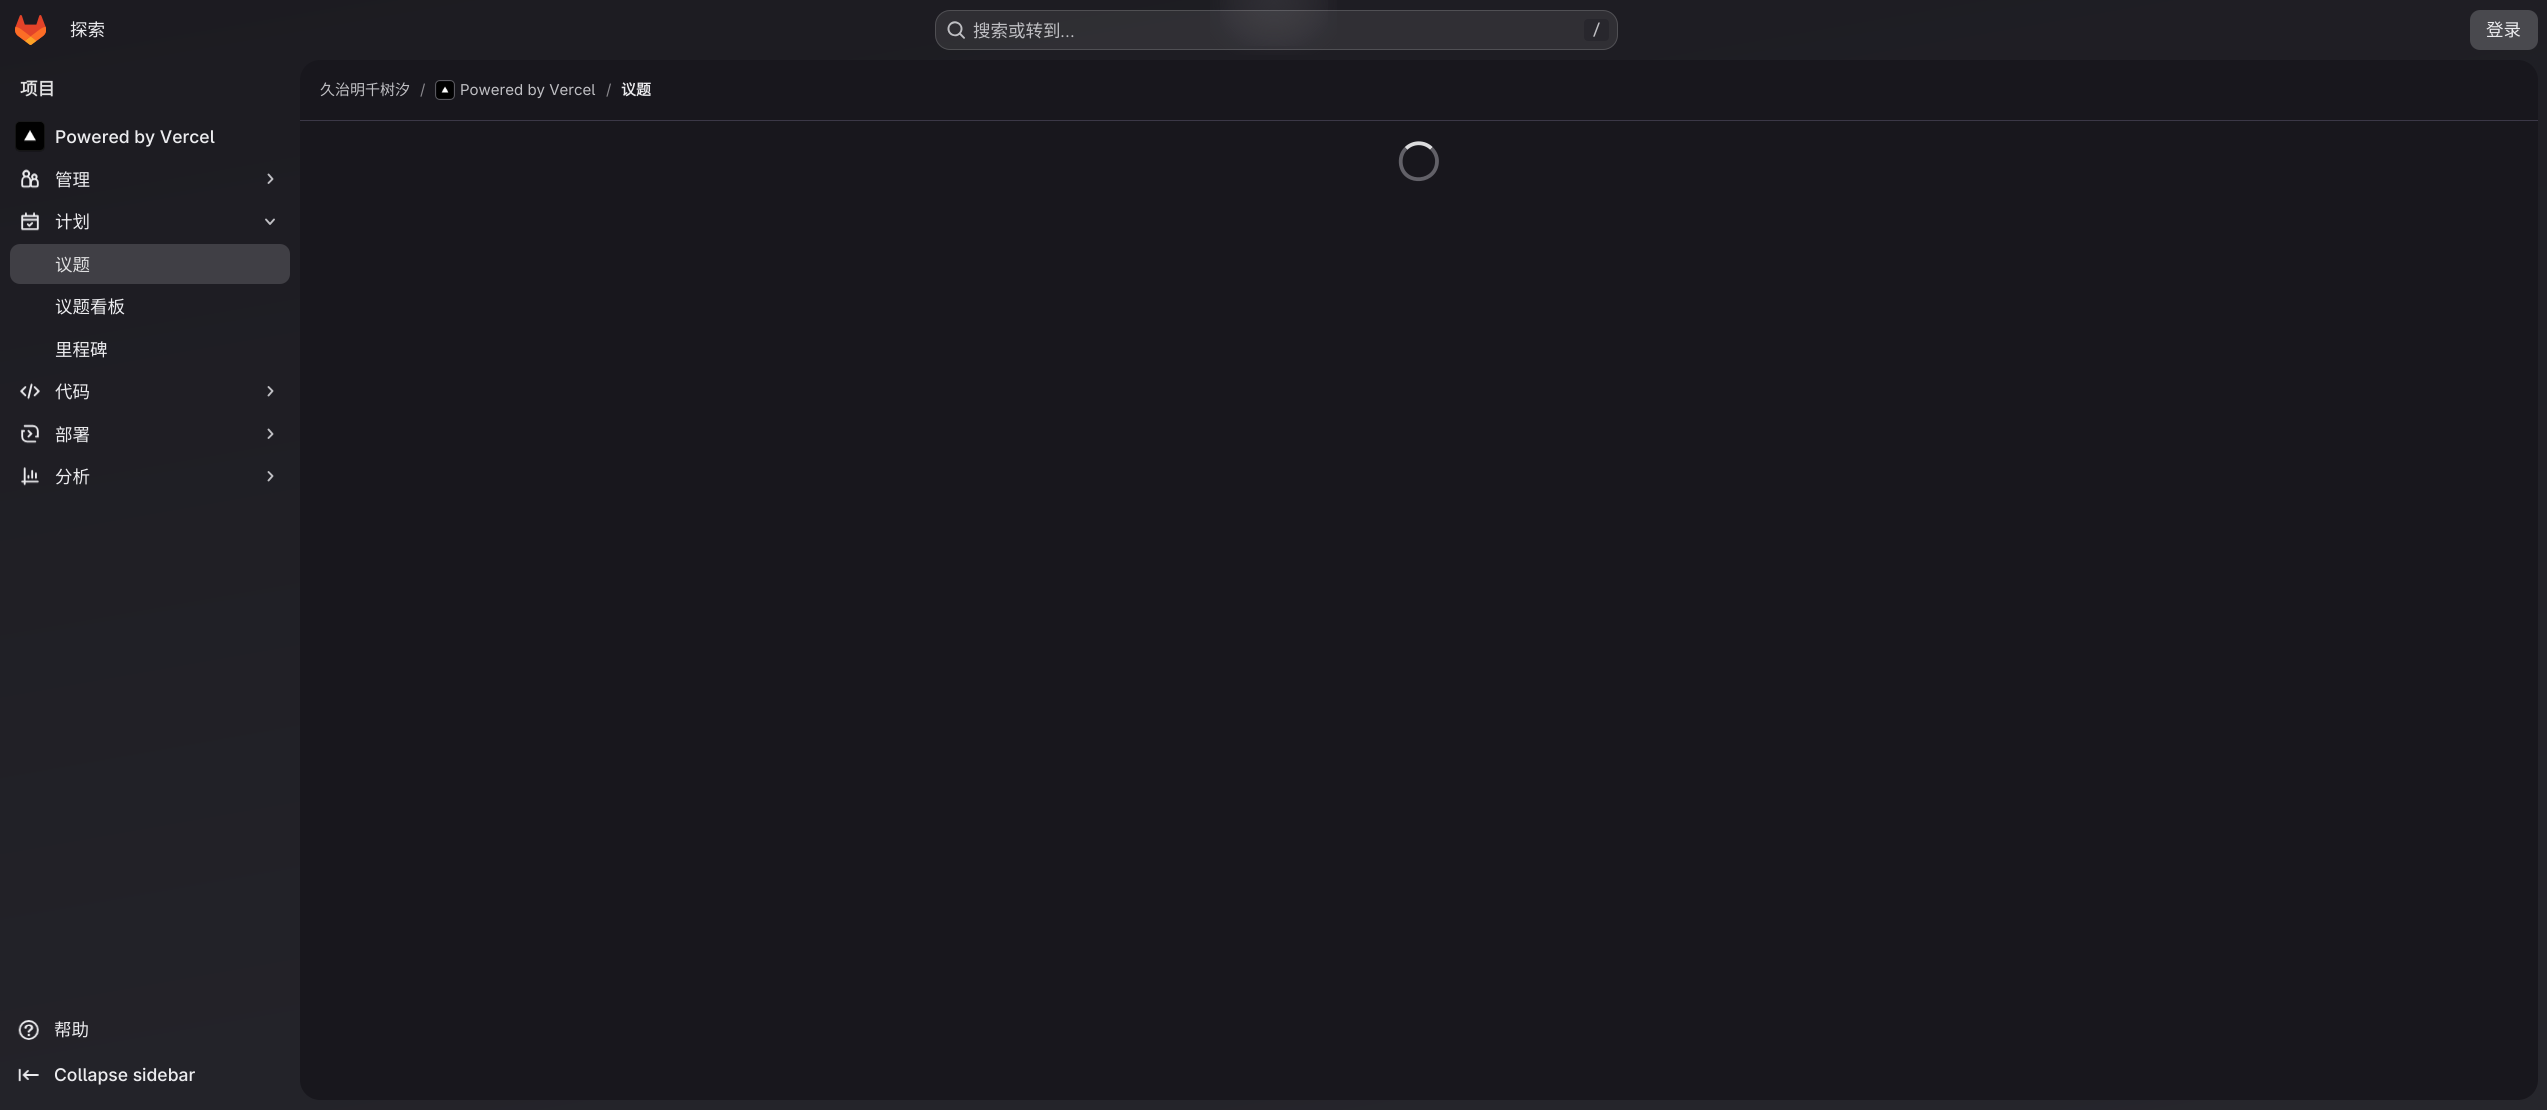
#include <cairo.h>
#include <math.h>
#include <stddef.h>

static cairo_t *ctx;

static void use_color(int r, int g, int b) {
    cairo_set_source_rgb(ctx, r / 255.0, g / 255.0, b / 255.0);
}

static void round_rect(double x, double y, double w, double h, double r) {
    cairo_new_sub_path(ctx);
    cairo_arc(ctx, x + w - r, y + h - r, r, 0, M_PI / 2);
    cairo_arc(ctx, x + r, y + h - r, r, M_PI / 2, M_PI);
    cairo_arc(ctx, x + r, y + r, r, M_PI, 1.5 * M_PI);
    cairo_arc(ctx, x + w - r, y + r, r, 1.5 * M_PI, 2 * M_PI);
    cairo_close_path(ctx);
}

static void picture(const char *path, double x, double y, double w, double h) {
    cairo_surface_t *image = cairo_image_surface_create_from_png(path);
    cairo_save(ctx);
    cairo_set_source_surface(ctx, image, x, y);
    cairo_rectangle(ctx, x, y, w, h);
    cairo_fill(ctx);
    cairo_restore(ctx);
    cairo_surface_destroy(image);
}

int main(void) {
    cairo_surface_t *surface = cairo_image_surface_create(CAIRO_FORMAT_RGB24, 2547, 1110);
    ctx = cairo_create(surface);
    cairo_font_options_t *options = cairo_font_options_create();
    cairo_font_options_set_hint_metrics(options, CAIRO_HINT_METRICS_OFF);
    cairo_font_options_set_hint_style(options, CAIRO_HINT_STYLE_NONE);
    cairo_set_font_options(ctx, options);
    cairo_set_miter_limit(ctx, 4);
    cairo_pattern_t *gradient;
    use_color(255, 255, 255);
    cairo_paint(ctx);
    gradient = cairo_pattern_create_linear(1407, 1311, 1140, -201);
    cairo_pattern_add_color_stop_rgba(gradient, 0, 0.149, 0.149, 0.173, 1);
    cairo_pattern_add_color_stop_rgba(gradient, 1, 0.11, 0.106, 0.129, 1);
    cairo_set_source(ctx, gradient);
    cairo_pattern_destroy(gradient);
    cairo_rectangle(ctx, 0, 0, 2547, 1110);
    cairo_fill(ctx);
    gradient = cairo_pattern_create_radial(0, 0, 0, 0, 0, 1);
    cairo_pattern_set_matrix(gradient, &(cairo_matrix_t){1.0 / 1274, 0, 0, 1.0 / 1110, -1.0 * 1274 / 1274, -1.0 * 0 / 1110});
    cairo_pattern_add_color_stop_rgba(gradient, 0, 0.188, 0.18, 0.204, 0.7);
    cairo_pattern_add_color_stop_rgba(gradient, 0.06, 0.188, 0.18, 0.204, 0);
    cairo_set_source(ctx, gradient);
    cairo_pattern_destroy(gradient);
    cairo_rectangle(ctx, 1210, 0, 127, 55);
    cairo_fill(ctx);
    gradient = cairo_pattern_create_radial(0, 0, 0, 0, 0, 1);
    cairo_pattern_set_matrix(gradient, &(cairo_matrix_t){1.0 / 1274, 0, 0, 1.0 / 1110, -1.0 * 1274 / 1274, -1.0 * 0 / 1110});
    cairo_pattern_add_color_stop_rgba(gradient, 0, 0.184, 0.18, 0.204, 1);
    cairo_pattern_add_color_stop_rgba(gradient, 0.05, 0.184, 0.18, 0.204, 0);
    cairo_set_source(ctx, gradient);
    cairo_pattern_destroy(gradient);
    cairo_rectangle(ctx, 1220, 0, 108, 46);
    cairo_fill(ctx);
    picture("img1.png", 15, 15, 31, 30);
    cairo_select_font_face(ctx, "Noto Sans CJK SC", CAIRO_FONT_SLANT_NORMAL, CAIRO_FONT_WEIGHT_NORMAL);
    cairo_set_font_size(ctx, 17.5);
    use_color(236, 236, 239);
    cairo_move_to(ctx, 70, 36);
    cairo_show_text(ctx, "探索");
    cairo_set_source_rgba(ctx, 1, 1, 1, 0.08);
    round_rect(935, 10, 683, 40, 15);
    cairo_fill(ctx);
    round_rect(935.5, 10.5, 682, 39, 14.5);
    cairo_set_source_rgba(ctx, 1, 1, 1, 0.16);
    cairo_set_line_width(ctx, 1);
    cairo_stroke(ctx);
    picture("img2.png", 947, 21, 18, 18);
    use_color(191, 191, 195);
    cairo_move_to(ctx, 973, 37);
    cairo_show_text(ctx, "搜索或转到");
    cairo_select_font_face(ctx, "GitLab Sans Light", CAIRO_FONT_SLANT_NORMAL, CAIRO_FONT_WEIGHT_NORMAL);
    cairo_move_to(ctx, 1060, 37);
    cairo_show_text(ctx, "…");
    use_color(40, 39, 45);
    round_rect(1584, 19, 25, 22, 4);
    cairo_fill(ctx);
    cairo_select_font_face(ctx, "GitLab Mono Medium", CAIRO_FONT_SLANT_NORMAL, CAIRO_FONT_WEIGHT_NORMAL);
    cairo_set_font_size(ctx, 15);
    use_color(191, 191, 195);
    cairo_move_to(ctx, 1592, 35);
    cairo_show_text(ctx, "/");
    use_color(73, 73, 78);
    round_rect(2470, 10, 68, 40, 10);
    cairo_fill(ctx);
    cairo_select_font_face(ctx, "Noto Sans CJK SC", CAIRO_FONT_SLANT_NORMAL, CAIRO_FONT_WEIGHT_NORMAL);
    cairo_set_font_size(ctx, 17.5);
    use_color(236, 236, 239);
    cairo_move_to(ctx, 2486, 36);
    cairo_show_text(ctx, "登录");
    cairo_select_font_face(ctx, "Noto Sans CJK SC", CAIRO_FONT_SLANT_NORMAL, CAIRO_FONT_WEIGHT_BOLD);
    use_color(224, 224, 225);
    cairo_move_to(ctx, 20, 95);
    cairo_show_text(ctx, "项目");
    picture("img3.png", 15, 121, 30, 31);
    round_rect(15.5, 121.5, 29, 29, 4.5);
    cairo_set_source_rgba(ctx, 1, 1, 1, 0.08);
    cairo_stroke(ctx);
    cairo_select_font_face(ctx, "GitLab Sans Medium", CAIRO_FONT_SLANT_NORMAL, CAIRO_FONT_WEIGHT_NORMAL);
    use_color(236, 236, 239);
    cairo_move_to(ctx, 55, 143);
    cairo_show_text(ctx, "Powered by Vercel");
    picture("img4.png", 21, 169, 18, 20);
    cairo_select_font_face(ctx, "Noto Sans CJK SC", CAIRO_FONT_SLANT_NORMAL, CAIRO_FONT_WEIGHT_NORMAL);
    cairo_move_to(ctx, 55, 186);
    cairo_show_text(ctx, "管理");
    cairo_new_path(ctx);
    cairo_move_to(ctx, 268.5, 174.5);
    cairo_line_to(ctx, 272.5, 179);
    cairo_line_to(ctx, 268.5, 183);
    use_color(191, 191, 195);
    cairo_set_line_width(ctx, 1.9);
    cairo_set_line_cap(ctx, CAIRO_LINE_CAP_ROUND);
    cairo_set_line_join(ctx, CAIRO_LINE_JOIN_ROUND);
    cairo_stroke(ctx);
    picture("img5.png", 21, 212, 18, 19);
    use_color(236, 236, 239);
    cairo_move_to(ctx, 55, 228);
    cairo_show_text(ctx, "计划");
    cairo_new_path(ctx);
    cairo_move_to(ctx, 274, 219.5);
    cairo_line_to(ctx, 270, 224);
    cairo_line_to(ctx, 266, 219.5);
    use_color(191, 191, 195);
    cairo_stroke(ctx);
    use_color(64, 63, 69);
    round_rect(10, 244, 280, 40, 10);
    cairo_fill(ctx);
    use_color(224, 224, 225);
    cairo_move_to(ctx, 55, 271);
    cairo_show_text(ctx, "议题");
    use_color(236, 236, 239);
    cairo_move_to(ctx, 55, 313);
    cairo_show_text(ctx, "议题看板");
    cairo_move_to(ctx, 55, 356);
    cairo_show_text(ctx, "里程碑");
    picture("img6.png", 20, 383, 20, 17);
    cairo_move_to(ctx, 55, 398);
    cairo_show_text(ctx, "代码");
    cairo_new_path(ctx);
    cairo_move_to(ctx, 268.5, 387);
    cairo_line_to(ctx, 272.5, 391);
    cairo_line_to(ctx, 268.5, 395.5);
    use_color(191, 191, 195);
    cairo_stroke(ctx);
    picture("img7.png", 21, 424, 18, 20);
    use_color(236, 236, 239);
    cairo_move_to(ctx, 55, 441);
    cairo_show_text(ctx, "部署");
    cairo_new_path(ctx);
    cairo_move_to(ctx, 268.5, 429.5);
    cairo_line_to(ctx, 272.5, 434);
    cairo_line_to(ctx, 268.5, 438);
    use_color(191, 191, 195);
    cairo_stroke(ctx);
    picture("img8.png", 21, 467, 18, 19);
    use_color(236, 236, 239);
    cairo_move_to(ctx, 55, 483);
    cairo_show_text(ctx, "分析");
    cairo_new_path(ctx);
    cairo_move_to(ctx, 268.5, 472);
    cairo_line_to(ctx, 272.5, 476);
    cairo_line_to(ctx, 268.5, 480.5);
    use_color(191, 191, 195);
    cairo_stroke(ctx);
    picture("img9.png", 18, 1020, 21, 20);
    use_color(236, 236, 239);
    cairo_move_to(ctx, 54, 1036);
    cairo_show_text(ctx, "帮助");
    picture("img10.png", 18, 1068, 21, 14);
    cairo_select_font_face(ctx, "GitLab Sans Medium", CAIRO_FONT_SLANT_NORMAL, CAIRO_FONT_WEIGHT_NORMAL);
    cairo_move_to(ctx, 54, 1081);
    cairo_show_text(ctx, "Collapse sidebar");
    use_color(24, 23, 29);
    round_rect(300, 60, 2238, 1040, 20);
    cairo_fill(ctx);
    use_color(59, 56, 71);
    cairo_rectangle(ctx, 300, 120, 2238, 1);
    cairo_fill(ctx);
    cairo_select_font_face(ctx, "Noto Sans CJK SC", CAIRO_FONT_SLANT_NORMAL, CAIRO_FONT_WEIGHT_NORMAL);
    cairo_set_font_size(ctx, 15);
    use_color(191, 191, 195);
    cairo_move_to(ctx, 320, 95);
    cairo_show_text(ctx, "久治明千树汐");
    cairo_select_font_face(ctx, "GitLab Sans", CAIRO_FONT_SLANT_NORMAL, CAIRO_FONT_WEIGHT_NORMAL);
    use_color(137, 136, 141);
    cairo_move_to(ctx, 420, 95);
    cairo_show_text(ctx, "/");
    round_rect(435.5, 80.5, 19, 19, 4.5);
    use_color(76, 75, 81);
    cairo_set_line_width(ctx, 1);
    cairo_set_line_cap(ctx, CAIRO_LINE_CAP_BUTT);
    cairo_set_line_join(ctx, CAIRO_LINE_JOIN_MITER);
    cairo_stroke(ctx);
    picture("img11.png", 436, 81, 18, 18);
    round_rect(435.5, 80.5, 19, 19, 4.5);
    cairo_set_source_rgba(ctx, 1, 1, 1, 0.08);
    cairo_stroke(ctx);
    use_color(191, 191, 195);
    cairo_move_to(ctx, 460, 95);
    cairo_show_text(ctx, "Powered by Vercel");
    use_color(137, 136, 141);
    cairo_move_to(ctx, 606, 95);
    cairo_show_text(ctx, "/");
    cairo_select_font_face(ctx, "Noto Sans CJK SC", CAIRO_FONT_SLANT_NORMAL, CAIRO_FONT_WEIGHT_BOLD);
    use_color(236, 236, 239);
    cairo_move_to(ctx, 621, 95);
    cairo_show_text(ctx, "议题");
    cairo_new_path(ctx);
    cairo_move_to(ctx, 1406, 148.5);
    cairo_curve_to(ctx, 1413, 141.5, 1424.5, 141.5, 1431.5, 148.5);
    use_color(220, 220, 222);
    cairo_set_line_width(ctx, 3.8);
    cairo_stroke(ctx);
    cairo_new_path(ctx);
    cairo_move_to(ctx, 1431.5, 148.5);
    cairo_curve_to(ctx, 1435, 152, 1437, 156.5, 1437, 161);
    cairo_curve_to(ctx, 1437, 183, 1405, 186, 1401, 165);
    cairo_curve_to(ctx, 1400, 159, 1401.5, 152.5, 1406, 148.5);
    use_color(98, 97, 104);
    cairo_stroke(ctx);
    cairo_surface_write_to_png(surface, "result.png");
    cairo_font_options_destroy(options);
    cairo_destroy(ctx);
    cairo_surface_destroy(surface);
    return 0;
}
